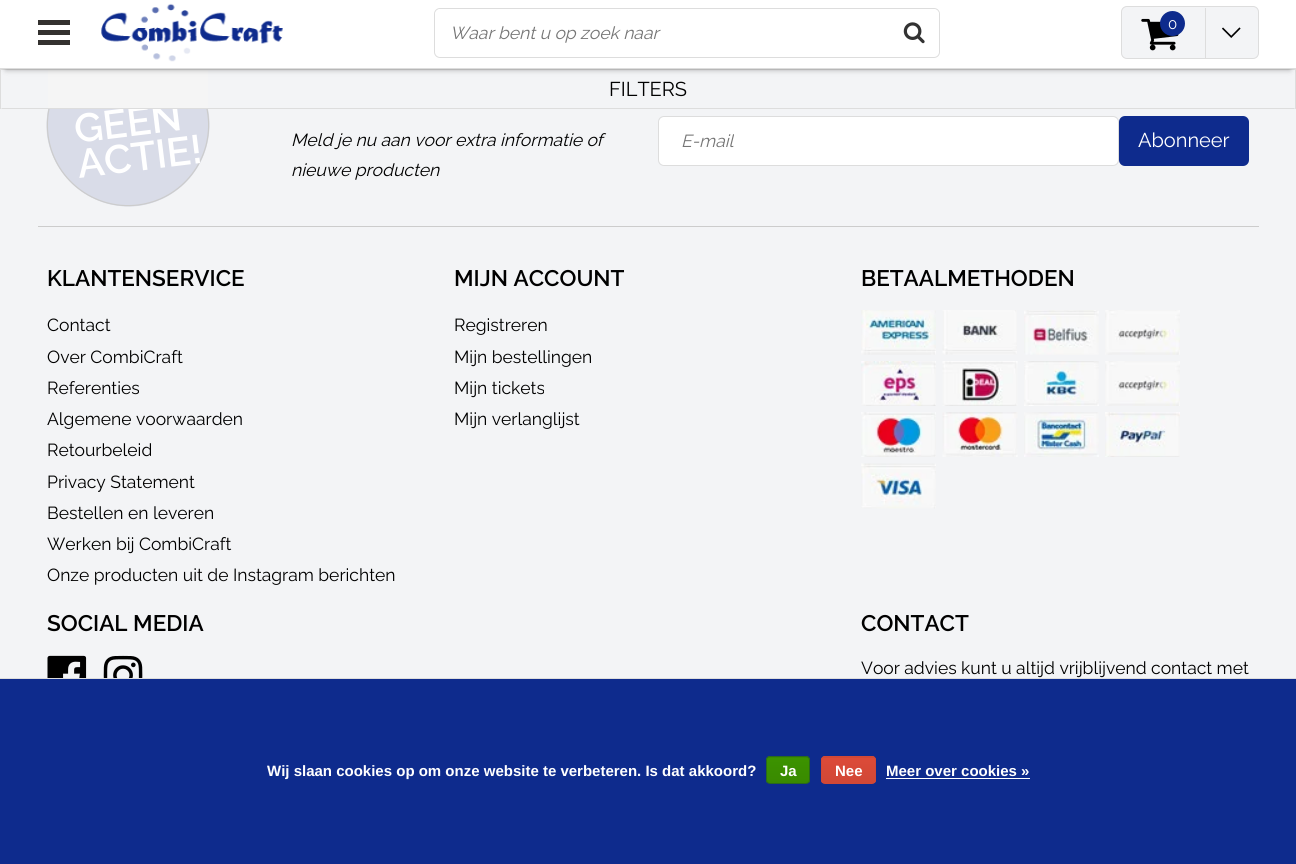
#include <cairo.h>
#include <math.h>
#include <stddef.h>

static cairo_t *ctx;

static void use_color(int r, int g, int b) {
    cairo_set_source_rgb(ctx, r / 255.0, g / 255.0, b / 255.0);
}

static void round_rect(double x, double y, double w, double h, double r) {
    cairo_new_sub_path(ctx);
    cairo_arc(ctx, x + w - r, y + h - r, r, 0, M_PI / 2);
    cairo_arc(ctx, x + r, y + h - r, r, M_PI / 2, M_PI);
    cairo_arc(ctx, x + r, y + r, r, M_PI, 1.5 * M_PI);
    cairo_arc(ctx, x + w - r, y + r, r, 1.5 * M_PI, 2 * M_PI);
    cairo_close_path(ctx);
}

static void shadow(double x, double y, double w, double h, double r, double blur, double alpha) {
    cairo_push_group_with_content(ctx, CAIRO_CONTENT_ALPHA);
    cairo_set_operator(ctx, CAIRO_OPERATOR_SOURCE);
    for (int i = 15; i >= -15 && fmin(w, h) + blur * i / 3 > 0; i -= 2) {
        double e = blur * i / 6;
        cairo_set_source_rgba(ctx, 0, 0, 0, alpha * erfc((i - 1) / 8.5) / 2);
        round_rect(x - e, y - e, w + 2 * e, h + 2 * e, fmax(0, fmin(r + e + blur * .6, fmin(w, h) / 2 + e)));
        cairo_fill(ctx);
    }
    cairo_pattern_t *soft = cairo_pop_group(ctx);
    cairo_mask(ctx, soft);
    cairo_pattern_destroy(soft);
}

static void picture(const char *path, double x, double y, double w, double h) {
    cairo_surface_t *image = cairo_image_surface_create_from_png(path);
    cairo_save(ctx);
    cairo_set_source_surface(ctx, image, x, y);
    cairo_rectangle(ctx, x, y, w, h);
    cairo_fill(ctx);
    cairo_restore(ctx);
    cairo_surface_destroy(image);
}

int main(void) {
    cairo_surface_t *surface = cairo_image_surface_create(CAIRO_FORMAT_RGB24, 1296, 864);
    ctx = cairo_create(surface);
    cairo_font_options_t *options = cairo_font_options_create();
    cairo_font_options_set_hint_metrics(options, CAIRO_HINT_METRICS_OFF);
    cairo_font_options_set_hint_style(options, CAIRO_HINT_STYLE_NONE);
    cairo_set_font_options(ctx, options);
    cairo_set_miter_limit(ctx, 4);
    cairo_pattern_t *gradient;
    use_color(243, 244, 246);
    cairo_paint(ctx);
    use_color(217, 220, 232);
    cairo_new_path(ctx);
    cairo_move_to(ctx, 118, 44);
    cairo_curve_to(ctx, 163, 39, 203, 71, 209, 115);
    cairo_curve_to(ctx, 214, 160, 183, 200, 138, 206);
    cairo_curve_to(ctx, 93, 211, 53, 179, 47, 135);
    cairo_curve_to(ctx, 42, 90, 74, 50, 118, 44);
    cairo_close_path(ctx);
    cairo_fill(ctx);
    cairo_new_path(ctx);
    cairo_move_to(ctx, 118.5, 45);
    cairo_curve_to(ctx, 162.5, 39.5, 202.5, 71, 208, 115);
    cairo_curve_to(ctx, 213.5, 159.5, 182, 199.5, 138, 205);
    cairo_curve_to(ctx, 94, 210.5, 53.5, 179, 48, 135);
    cairo_curve_to(ctx, 42.5, 90.5, 74, 50.5, 118.5, 45);
    cairo_close_path(ctx);
    use_color(204, 204, 204);
    cairo_set_line_width(ctx, 1.2);
    cairo_stroke(ctx);
    use_color(221, 221, 221);
    cairo_rectangle(ctx, 0, 69, 1296, 1);
    cairo_fill(ctx);
    cairo_rectangle(ctx, 1295, 69, 1, 40);
    cairo_fill(ctx);
    cairo_rectangle(ctx, 0, 69, 1, 40);
    cairo_fill(ctx);
    cairo_select_font_face(ctx, "Raleway SemiBold", CAIRO_FONT_SLANT_NORMAL, CAIRO_FONT_WEIGHT_NORMAL);
    cairo_set_font_size(ctx, 40);
    use_color(255, 255, 255);
    cairo_save(ctx);
    cairo_translate(ctx, 76, 143);
    cairo_rotate(ctx, -7 * M_PI / 180);
    cairo_move_to(ctx, 0, 0);
    cairo_show_text(ctx, "GEEN");
    cairo_restore(ctx);
    use_color(245, 245, 245);
    cairo_rectangle(ctx, 48, 70, 160, 39);
    cairo_fill(ctx);
    use_color(0, 0, 0);
    shadow(6, 13, 1284, 56, 0, 3, 0.4);
    use_color(255, 255, 255);
    cairo_rectangle(ctx, 0, 0, 1296, 68);
    cairo_fill(ctx);
    use_color(221, 221, 221);
    cairo_rectangle(ctx, 0, 68, 1296, 1);
    cairo_fill(ctx);
    use_color(52, 49, 47);
    cairo_rectangle(ctx, 38, 20, 32, 5);
    cairo_fill(ctx);
    cairo_rectangle(ctx, 38, 30, 32, 5);
    cairo_fill(ctx);
    cairo_rectangle(ctx, 38, 40, 32, 5);
    cairo_fill(ctx);
    picture("img1.png", 101, 3, 182, 59);
    use_color(243, 244, 246);
    round_rect(1121.5, 6.5, 137, 52, 5.5);
    cairo_fill_preserve(ctx);
    use_color(221, 221, 221);
    cairo_set_line_width(ctx, 1);
    cairo_stroke(ctx);
    picture("img2.png", 1141, 18, 38, 33);
    use_color(14, 43, 141);
    cairo_arc(ctx, 1172.5, 23.5, 12.5, 0, 2 * M_PI);
    cairo_fill(ctx);
    cairo_select_font_face(ctx, "Raleway", CAIRO_FONT_SLANT_NORMAL, CAIRO_FONT_WEIGHT_NORMAL);
    cairo_set_font_size(ctx, 15);
    use_color(255, 255, 255);
    cairo_move_to(ctx, 1168, 29);
    cairo_show_text(ctx, "0");
    use_color(221, 221, 221);
    cairo_new_path(ctx);
    cairo_move_to(ctx, 1205, 59);
    cairo_line_to(ctx, 1205, 8);
    cairo_line_to(ctx, 1206, 8);
    cairo_line_to(ctx, 1206, 58);
    cairo_close_path(ctx);
    cairo_fill(ctx);
    picture("img3.png", 1222, 27, 19, 11);
    round_rect(434.5, 8.5, 505, 49, 5.5);
    cairo_stroke(ctx);
    use_color(255, 255, 255);
    round_rect(435, 9, 504, 47, 6);
    cairo_fill(ctx);
    cairo_select_font_face(ctx, "Raleway", CAIRO_FONT_SLANT_ITALIC, CAIRO_FONT_WEIGHT_NORMAL);
    cairo_set_font_size(ctx, 17.5);
    use_color(117, 117, 117);
    cairo_move_to(ctx, 450, 39);
    cairo_show_text(ctx, "Waar bent u op zoek naar");
    picture("img4.png", 903, 22, 22, 22);
    use_color(221, 221, 221);
    cairo_new_path(ctx);
    cairo_move_to(ctx, 1295, 109);
    cairo_line_to(ctx, 1, 109);
    cairo_line_to(ctx, 2, 108);
    cairo_line_to(ctx, 1294, 108);
    cairo_close_path(ctx);
    cairo_fill(ctx);
    cairo_select_font_face(ctx, "Raleway", CAIRO_FONT_SLANT_NORMAL, CAIRO_FONT_WEIGHT_NORMAL);
    cairo_set_font_size(ctx, 20);
    use_color(0, 0, 0);
    cairo_move_to(ctx, 609, 96);
    cairo_show_text(ctx, "FILTERS");
    cairo_select_font_face(ctx, "Raleway SemiBold", CAIRO_FONT_SLANT_NORMAL, CAIRO_FONT_WEIGHT_NORMAL);
    cairo_set_font_size(ctx, 40);
    use_color(255, 255, 255);
    cairo_save(ctx);
    cairo_translate(ctx, 79, 178);
    cairo_rotate(ctx, -7 * M_PI / 180);
    cairo_move_to(ctx, 0, 0);
    cairo_show_text(ctx, "ACTIE!");
    cairo_restore(ctx);
    cairo_select_font_face(ctx, "Raleway", CAIRO_FONT_SLANT_ITALIC, CAIRO_FONT_WEIGHT_NORMAL);
    cairo_set_font_size(ctx, 17.5);
    use_color(0, 0, 0);
    cairo_move_to(ctx, 291, 146);
    cairo_show_text(ctx, "Meld je nu aan voor extra informatie of");
    cairo_move_to(ctx, 291, 176);
    cairo_show_text(ctx, "nieuwe producten");
    use_color(255, 255, 255);
    round_rect(658.5, 116.5, 460, 49, 5.5);
    cairo_fill_preserve(ctx);
    use_color(221, 221, 221);
    cairo_stroke(ctx);
    use_color(117, 117, 117);
    cairo_move_to(ctx, 681, 147);
    cairo_show_text(ctx, "E-mail");
    use_color(14, 43, 141);
    round_rect(1119, 116, 130, 50, 6);
    cairo_fill(ctx);
    cairo_select_font_face(ctx, "Raleway", CAIRO_FONT_SLANT_NORMAL, CAIRO_FONT_WEIGHT_NORMAL);
    cairo_set_font_size(ctx, 20);
    use_color(255, 255, 255);
    cairo_move_to(ctx, 1138, 147);
    cairo_show_text(ctx, "Abonneer");
    use_color(204, 204, 204);
    cairo_rectangle(ctx, 38, 226, 1221, 1);
    cairo_fill(ctx);
    cairo_select_font_face(ctx, "Raleway SemiBold", CAIRO_FONT_SLANT_NORMAL, CAIRO_FONT_WEIGHT_NORMAL);
    cairo_set_font_size(ctx, 22.5);
    use_color(0, 0, 0);
    cairo_move_to(ctx, 47, 286);
    cairo_show_text(ctx, "KLANTENSERVICE");
    cairo_select_font_face(ctx, "Raleway", CAIRO_FONT_SLANT_NORMAL, CAIRO_FONT_WEIGHT_NORMAL);
    cairo_set_font_size(ctx, 17.5);
    cairo_move_to(ctx, 47, 331);
    cairo_show_text(ctx, "Contact");
    cairo_move_to(ctx, 47, 363);
    cairo_show_text(ctx, "Over CombiCraft");
    cairo_move_to(ctx, 47, 394);
    cairo_show_text(ctx, "Referenties");
    cairo_move_to(ctx, 47, 425);
    cairo_show_text(ctx, "Algemene voorwaarden");
    cairo_move_to(ctx, 47, 456);
    cairo_show_text(ctx, "Retourbeleid");
    cairo_move_to(ctx, 47, 488);
    cairo_show_text(ctx, "Privacy Statement");
    cairo_move_to(ctx, 47, 519);
    cairo_show_text(ctx, "Bestellen en leveren");
    cairo_move_to(ctx, 47, 550);
    cairo_show_text(ctx, "Werken bij CombiCraft");
    cairo_move_to(ctx, 47, 581);
    cairo_show_text(ctx, "Onze producten uit de Instagram berichten");
    cairo_select_font_face(ctx, "Raleway SemiBold", CAIRO_FONT_SLANT_NORMAL, CAIRO_FONT_WEIGHT_NORMAL);
    cairo_set_font_size(ctx, 22.5);
    cairo_move_to(ctx, 454, 286);
    cairo_show_text(ctx, "MIJN ACCOUNT");
    cairo_select_font_face(ctx, "Raleway", CAIRO_FONT_SLANT_NORMAL, CAIRO_FONT_WEIGHT_NORMAL);
    cairo_set_font_size(ctx, 17.5);
    cairo_move_to(ctx, 454, 331);
    cairo_show_text(ctx, "Registreren");
    cairo_move_to(ctx, 454, 363);
    cairo_show_text(ctx, "Mijn bestellingen");
    cairo_move_to(ctx, 454, 394);
    cairo_show_text(ctx, "Mijn tickets");
    cairo_move_to(ctx, 454, 425);
    cairo_show_text(ctx, "Mijn verlanglijst");
    cairo_select_font_face(ctx, "Raleway SemiBold", CAIRO_FONT_SLANT_NORMAL, CAIRO_FONT_WEIGHT_NORMAL);
    cairo_set_font_size(ctx, 22.5);
    cairo_move_to(ctx, 861, 286);
    cairo_show_text(ctx, "BETAALMETHODEN");
    picture("img5.png", 861, 310, 75, 45);
    picture("img6.png", 942, 310, 75, 45);
    picture("img7.png", 1024, 310, 75, 45);
    picture("img8.png", 1105, 310, 75, 45);
    picture("img9.png", 861, 361, 75, 45);
    picture("img10.png", 942, 361, 76, 45);
    picture("img11.png", 1024, 361, 75, 45);
    picture("img12.png", 1105, 361, 75, 45);
    picture("img13.png", 861, 412, 75, 45);
    picture("img14.png", 942, 412, 76, 45);
    picture("img15.png", 1024, 412, 75, 45);
    picture("img16.png", 1105, 412, 75, 45);
    picture("img17.png", 861, 463, 75, 46);
    cairo_move_to(ctx, 47, 631);
    cairo_show_text(ctx, "SOCIAL MEDIA");
    picture("img18.png", 47, 655, 40, 23);
    picture("img19.png", 103, 655, 40, 23);
    cairo_move_to(ctx, 861, 631);
    cairo_show_text(ctx, "CONTACT");
    cairo_select_font_face(ctx, "Raleway", CAIRO_FONT_SLANT_NORMAL, CAIRO_FONT_WEIGHT_NORMAL);
    cairo_set_font_size(ctx, 17.5);
    cairo_move_to(ctx, 861, 674);
    cairo_show_text(ctx, "Voor advies kunt u altijd vrijblijvend contact met");
    use_color(14, 43, 141);
    cairo_rectangle(ctx, 0, 679, 1296, 185);
    cairo_fill(ctx);
    use_color(221, 221, 221);
    cairo_rectangle(ctx, 0, 678, 1296, 1);
    cairo_fill(ctx);
    cairo_select_font_face(ctx, "Liberation Sans", CAIRO_FONT_SLANT_NORMAL, CAIRO_FONT_WEIGHT_BOLD);
    cairo_set_font_size(ctx, 15);
    use_color(255, 255, 255);
    cairo_move_to(ctx, 267, 776);
    cairo_show_text(ctx, "Wij slaan cookies op om onze website te verbeteren. Is dat akkoord?");
    cairo_save(ctx);
    round_rect(766, 756, 44, 28, 4);
    cairo_clip(ctx);
    gradient = cairo_pattern_create_linear(788, 733, 788, 758);
    cairo_pattern_add_color_stop_rgba(gradient, 0, 0.235, 0.576, 0, 1);
    cairo_pattern_add_color_stop_rgba(gradient, 1, 0.224, 0.541, 0, 1);
    cairo_set_source(ctx, gradient);
    cairo_pattern_destroy(gradient);
    cairo_rectangle(ctx, 766, 756, 44, 2);
    cairo_fill(ctx);
    gradient = cairo_pattern_create_linear(788, 758, 788, 783);
    cairo_pattern_add_color_stop_rgba(gradient, 0, 0.235, 0.576, 0, 1);
    cairo_pattern_add_color_stop_rgba(gradient, 1, 0.224, 0.541, 0, 1);
    cairo_set_source(ctx, gradient);
    cairo_pattern_destroy(gradient);
    cairo_rectangle(ctx, 766, 758, 44, 25);
    cairo_fill(ctx);
    cairo_restore(ctx);
    round_rect(766.5, 756.5, 43, 27, 3.5);
    use_color(41, 105, 29);
    cairo_stroke(ctx);
    use_color(255, 255, 255);
    cairo_move_to(ctx, 780, 776);
    cairo_show_text(ctx, "Ja");
    cairo_save(ctx);
    round_rect(821, 756, 55, 28, 4);
    cairo_clip(ctx);
    gradient = cairo_pattern_create_linear(849, 733, 849, 758);
    cairo_pattern_add_color_stop_rgba(gradient, 0, 0.863, 0.29, 0.22, 1);
    cairo_pattern_add_color_stop_rgba(gradient, 1, 0.82, 0.282, 0.212, 1);
    cairo_set_source(ctx, gradient);
    cairo_pattern_destroy(gradient);
    cairo_rectangle(ctx, 821, 756, 55, 2);
    cairo_fill(ctx);
    gradient = cairo_pattern_create_linear(849, 758, 849, 783);
    cairo_pattern_add_color_stop_rgba(gradient, 0, 0.863, 0.29, 0.22, 1);
    cairo_pattern_add_color_stop_rgba(gradient, 1, 0.82, 0.282, 0.212, 1);
    cairo_set_source(ctx, gradient);
    cairo_pattern_destroy(gradient);
    cairo_rectangle(ctx, 821, 758, 55, 25);
    cairo_fill(ctx);
    cairo_restore(ctx);
    round_rect(821.5, 756.5, 54, 27, 3.5);
    use_color(209, 72, 54);
    cairo_stroke(ctx);
    use_color(255, 255, 255);
    cairo_move_to(ctx, 835, 776);
    cairo_show_text(ctx, "Nee");
    cairo_move_to(ctx, 886, 776);
    cairo_show_text(ctx, "Meer over cookies »");
    cairo_rectangle(ctx, 886, 778, 144, 1);
    cairo_fill(ctx);
    cairo_surface_write_to_png(surface, "result.png");
    cairo_font_options_destroy(options);
    cairo_destroy(ctx);
    cairo_surface_destroy(surface);
    return 0;
}
